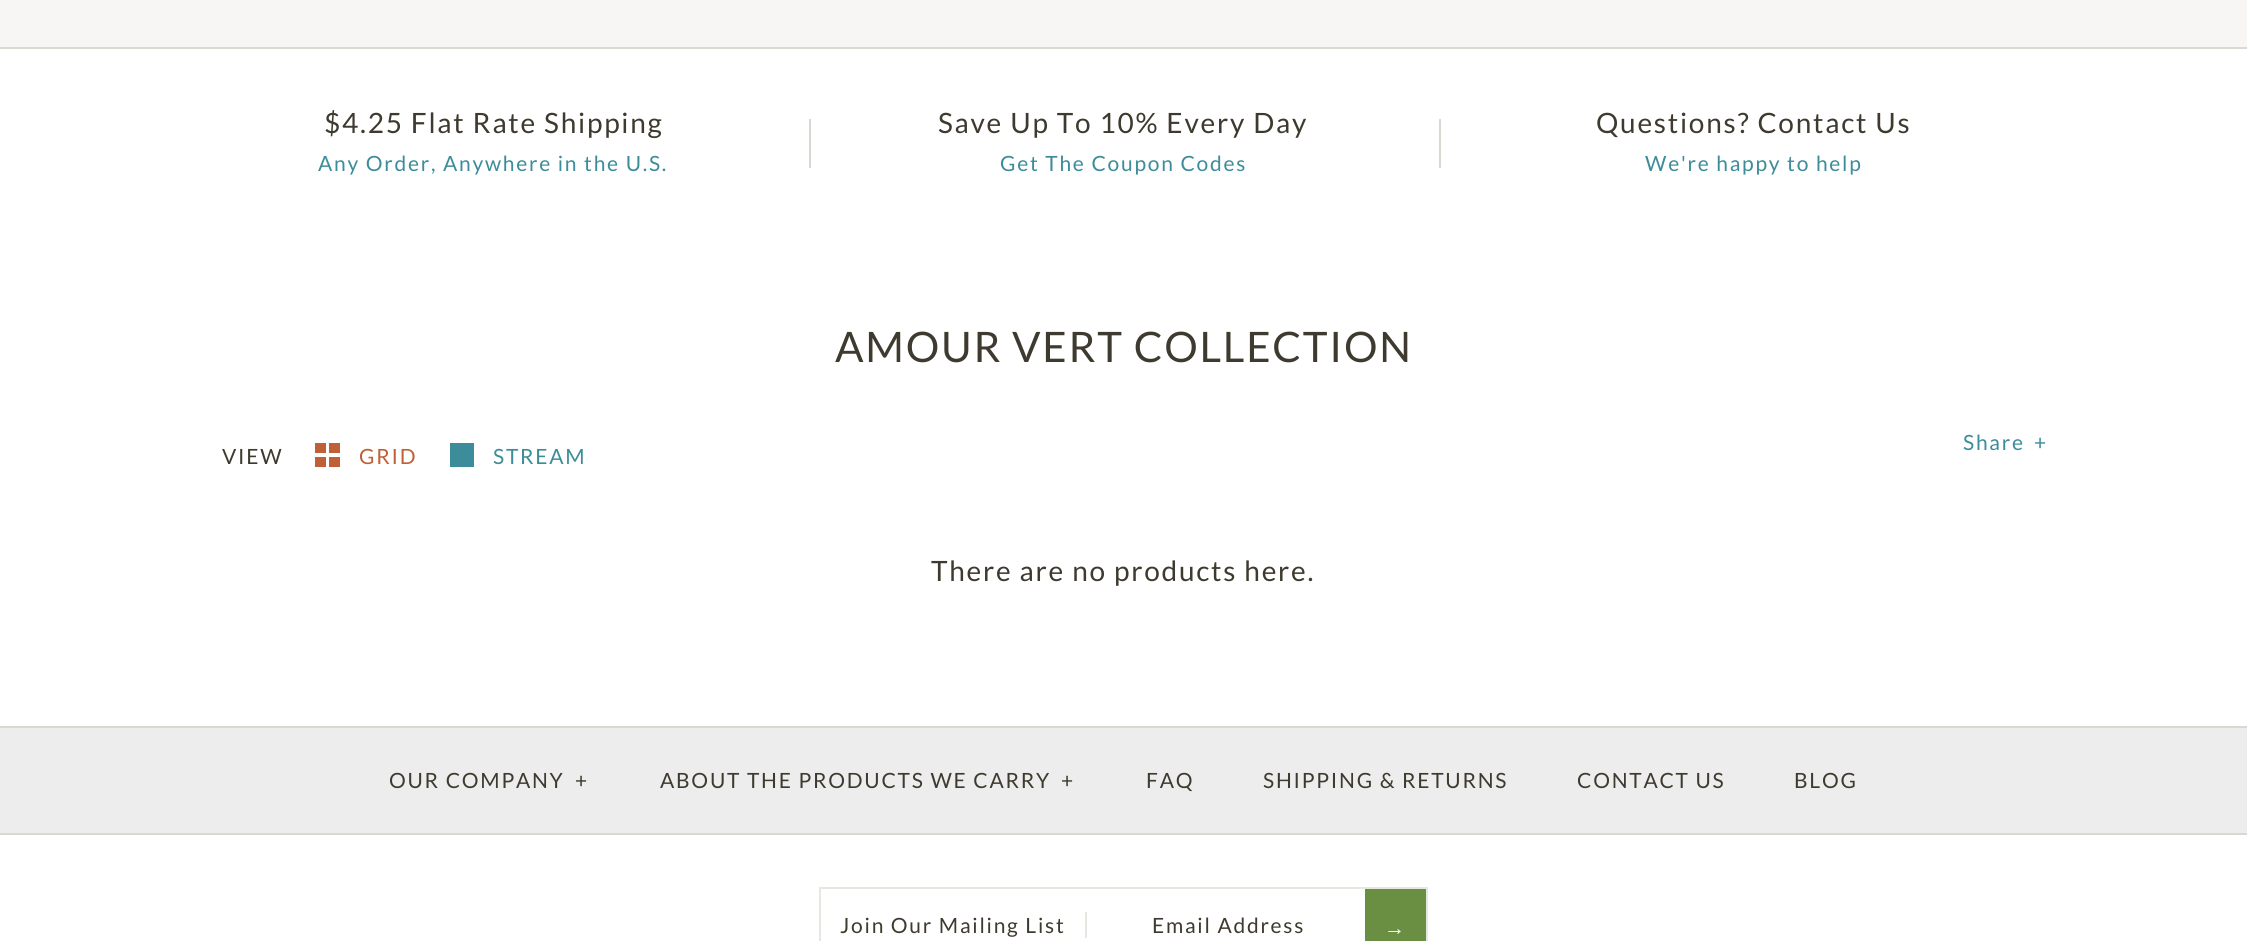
#include <cairo.h>
#include <math.h>
#include <stddef.h>

static cairo_t *ctx;

static void use_color(int r, int g, int b) {
    cairo_set_source_rgb(ctx, r / 255.0, g / 255.0, b / 255.0);
}

static void spaced_text(double x, double y, const char *s, double letter, double word) {
    cairo_move_to(ctx, x, y);
    while (*s) {
        char ch[5] = {0};
        int n = 0;
        do ch[n++] = *s++; while ((*s & 0xC0) == 0x80);
        cairo_show_text(ctx, ch);
        cairo_rel_move_to(ctx, letter + word * (*ch == ' '), 0);
    }
}

int main(void) {
    cairo_surface_t *surface = cairo_image_surface_create(CAIRO_FORMAT_RGB24, 2247, 941);
    ctx = cairo_create(surface);
    cairo_font_options_t *options = cairo_font_options_create();
    cairo_font_options_set_hint_metrics(options, CAIRO_HINT_METRICS_OFF);
    cairo_font_options_set_hint_style(options, CAIRO_HINT_STYLE_NONE);
    cairo_set_font_options(ctx, options);
    cairo_set_miter_limit(ctx, 4);
    use_color(255, 255, 255);
    cairo_paint(ctx);
    use_color(217, 217, 210);
    cairo_rectangle(ctx, 0, 47, 2247, 2);
    cairo_fill(ctx);
    use_color(247, 246, 244);
    cairo_rectangle(ctx, 0, 0, 2247, 47);
    cairo_fill(ctx);
    cairo_select_font_face(ctx, "Lato", CAIRO_FONT_SLANT_NORMAL, CAIRO_FONT_WEIGHT_NORMAL);
    cairo_set_font_size(ctx, 28);
    use_color(62, 58, 47);
    spaced_text(324, 133, "$4.25 Flat Rate Shipping", 1.75, 0);
    cairo_set_font_size(ctx, 21);
    use_color(60, 140, 154);
    spaced_text(318, 171, "Any Order, Anywhere in the U.S.", 1.75, 0);
    use_color(217, 217, 210);
    cairo_rectangle(ctx, 809, 119, 2, 49);
    cairo_fill(ctx);
    cairo_set_font_size(ctx, 28);
    use_color(62, 58, 47);
    spaced_text(938, 133, "Save Up To 10% Every Day", 1.75, 0);
    cairo_set_font_size(ctx, 21);
    use_color(60, 140, 154);
    spaced_text(1000, 171, "Get The Coupon Codes", 1.75, 0);
    use_color(217, 217, 210);
    cairo_rectangle(ctx, 1439, 119, 2, 49);
    cairo_fill(ctx);
    cairo_set_font_size(ctx, 28);
    use_color(62, 58, 47);
    spaced_text(1596, 133, "Questions? Contact Us", 1.75, 0);
    cairo_set_font_size(ctx, 21);
    use_color(60, 140, 154);
    spaced_text(1645, 171, "We're happy to help", 1.75, 0);
    cairo_set_font_size(ctx, 42);
    use_color(62, 58, 47);
    spaced_text(835, 362, "AMOUR VERT COLLECTION", 1.75, 0);
    cairo_set_font_size(ctx, 21);
    use_color(60, 140, 154);
    spaced_text(1963, 450, "Share", 1.75, 0);
    spaced_text(2034, 450, "+", 1.75, 0);
    use_color(62, 58, 47);
    spaced_text(222, 464, "VIEW", 1.75, 0);
    use_color(191, 96, 54);
    cairo_rectangle(ctx, 315, 443, 11, 10);
    cairo_fill(ctx);
    cairo_rectangle(ctx, 329, 443, 11, 10);
    cairo_fill(ctx);
    spaced_text(359, 464, "GRID", 1.75, 0);
    cairo_rectangle(ctx, 315, 457, 11, 10);
    cairo_fill(ctx);
    cairo_rectangle(ctx, 329, 457, 11, 10);
    cairo_fill(ctx);
    use_color(60, 140, 154);
    cairo_rectangle(ctx, 450, 443, 24, 24);
    cairo_fill(ctx);
    spaced_text(493, 464, "STREAM", 1.75, 0);
    cairo_set_font_size(ctx, 28);
    use_color(62, 58, 47);
    spaced_text(931, 581, "There are no products here.", 1.75, 0);
    use_color(217, 217, 210);
    cairo_rectangle(ctx, 0, 726, 2247, 2);
    cairo_fill(ctx);
    cairo_rectangle(ctx, 0, 833, 2247, 2);
    cairo_fill(ctx);
    use_color(237, 237, 237);
    cairo_rectangle(ctx, 0, 728, 2247, 105);
    cairo_fill(ctx);
    cairo_set_font_size(ctx, 21);
    use_color(62, 58, 47);
    spaced_text(389, 788, "OUR COMPANY", 1.75, 0);
    spaced_text(575, 788, "+", 1.75, 0);
    spaced_text(660, 788, "ABOUT THE PRODUCTS WE CARRY", 1.75, 0);
    spaced_text(1061, 788, "+", 1.75, 0);
    spaced_text(1146, 788, "FAQ", 1.75, 0);
    spaced_text(1263, 788, "SHIPPING & RETURNS", 1.75, 0);
    spaced_text(1577, 788, "CONTACT US", 1.75, 0);
    spaced_text(1794, 788, "BLOG", 1.75, 0);
    cairo_rectangle(ctx, 820, 888, 607, 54);
    use_color(231, 231, 225);
    cairo_stroke(ctx);
    use_color(62, 58, 47);
    spaced_text(840, 933, "Join Our Mailing List", 1.75, 0);
    use_color(231, 231, 225);
    cairo_rectangle(ctx, 1085, 912, 2, 26);
    cairo_fill(ctx);
    use_color(62, 58, 47);
    spaced_text(1152, 933, "Email Address", 1.75, 0);
    use_color(106, 143, 66);
    cairo_rectangle(ctx, 1365, 889, 61, 52);
    cairo_fill(ctx);
    cairo_select_font_face(ctx, "Liberation Serif", CAIRO_FONT_SLANT_NORMAL, CAIRO_FONT_WEIGHT_NORMAL);
    use_color(255, 255, 255);
    spaced_text(1384, 935, "→", 1.75, 0);
    cairo_surface_write_to_png(surface, "result.png");
    cairo_font_options_destroy(options);
    cairo_destroy(ctx);
    cairo_surface_destroy(surface);
    return 0;
}
